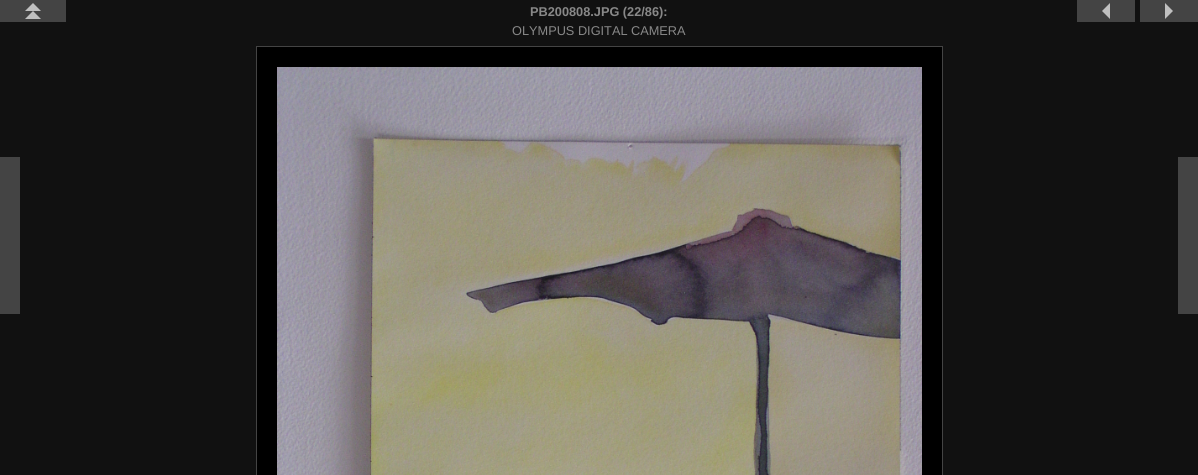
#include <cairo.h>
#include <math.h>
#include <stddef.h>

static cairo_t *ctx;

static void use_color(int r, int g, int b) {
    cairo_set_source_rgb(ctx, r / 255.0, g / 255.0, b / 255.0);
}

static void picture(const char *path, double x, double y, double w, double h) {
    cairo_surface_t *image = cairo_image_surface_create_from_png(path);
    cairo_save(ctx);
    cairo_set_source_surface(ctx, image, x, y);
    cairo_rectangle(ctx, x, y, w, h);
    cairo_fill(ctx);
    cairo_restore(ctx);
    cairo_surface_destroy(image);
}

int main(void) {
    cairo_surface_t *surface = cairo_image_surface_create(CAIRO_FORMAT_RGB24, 1198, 475);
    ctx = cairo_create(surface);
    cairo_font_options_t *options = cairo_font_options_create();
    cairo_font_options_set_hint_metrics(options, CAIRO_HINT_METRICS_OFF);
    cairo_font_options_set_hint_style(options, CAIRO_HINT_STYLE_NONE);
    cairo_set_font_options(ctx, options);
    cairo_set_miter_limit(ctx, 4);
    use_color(17, 17, 17);
    cairo_paint(ctx);
    use_color(68, 68, 68);
    cairo_rectangle(ctx, 0, 0, 66, 22);
    cairo_fill(ctx);
    picture("img1.png", 25, 3, 16, 16);
    cairo_select_font_face(ctx, "Liberation Sans", CAIRO_FONT_SLANT_NORMAL, CAIRO_FONT_WEIGHT_BOLD);
    cairo_set_font_size(ctx, 12.75);
    use_color(136, 136, 136);
    cairo_move_to(ctx, 530, 16);
    cairo_show_text(ctx, "PB200808.JPG (22/86):");
    use_color(68, 68, 68);
    cairo_rectangle(ctx, 1077, 0, 58, 22);
    cairo_fill(ctx);
    picture("img2.png", 1102, 3, 8, 16);
    cairo_rectangle(ctx, 1140, 0, 58, 22);
    cairo_fill(ctx);
    picture("img3.png", 1165, 3, 8, 16);
    cairo_select_font_face(ctx, "Liberation Sans", CAIRO_FONT_SLANT_NORMAL, CAIRO_FONT_WEIGHT_NORMAL);
    use_color(136, 136, 136);
    cairo_move_to(ctx, 512, 35);
    cairo_show_text(ctx, "OLYMPUS DIGITAL CAMERA");
    use_color(68, 68, 68);
    cairo_rectangle(ctx, 0, 157, 20, 157);
    cairo_fill(ctx);
    use_color(0, 0, 0);
    cairo_rectangle(ctx, 256.5, 46.5, 686, 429);
    cairo_fill_preserve(ctx);
    use_color(68, 68, 68);
    cairo_set_line_width(ctx, 1);
    cairo_stroke(ctx);
    picture("img4.png", 277, 67, 645, 408);
    cairo_rectangle(ctx, 1178, 157, 20, 157);
    cairo_fill(ctx);
    cairo_surface_write_to_png(surface, "result.png");
    cairo_font_options_destroy(options);
    cairo_destroy(ctx);
    cairo_surface_destroy(surface);
    return 0;
}
